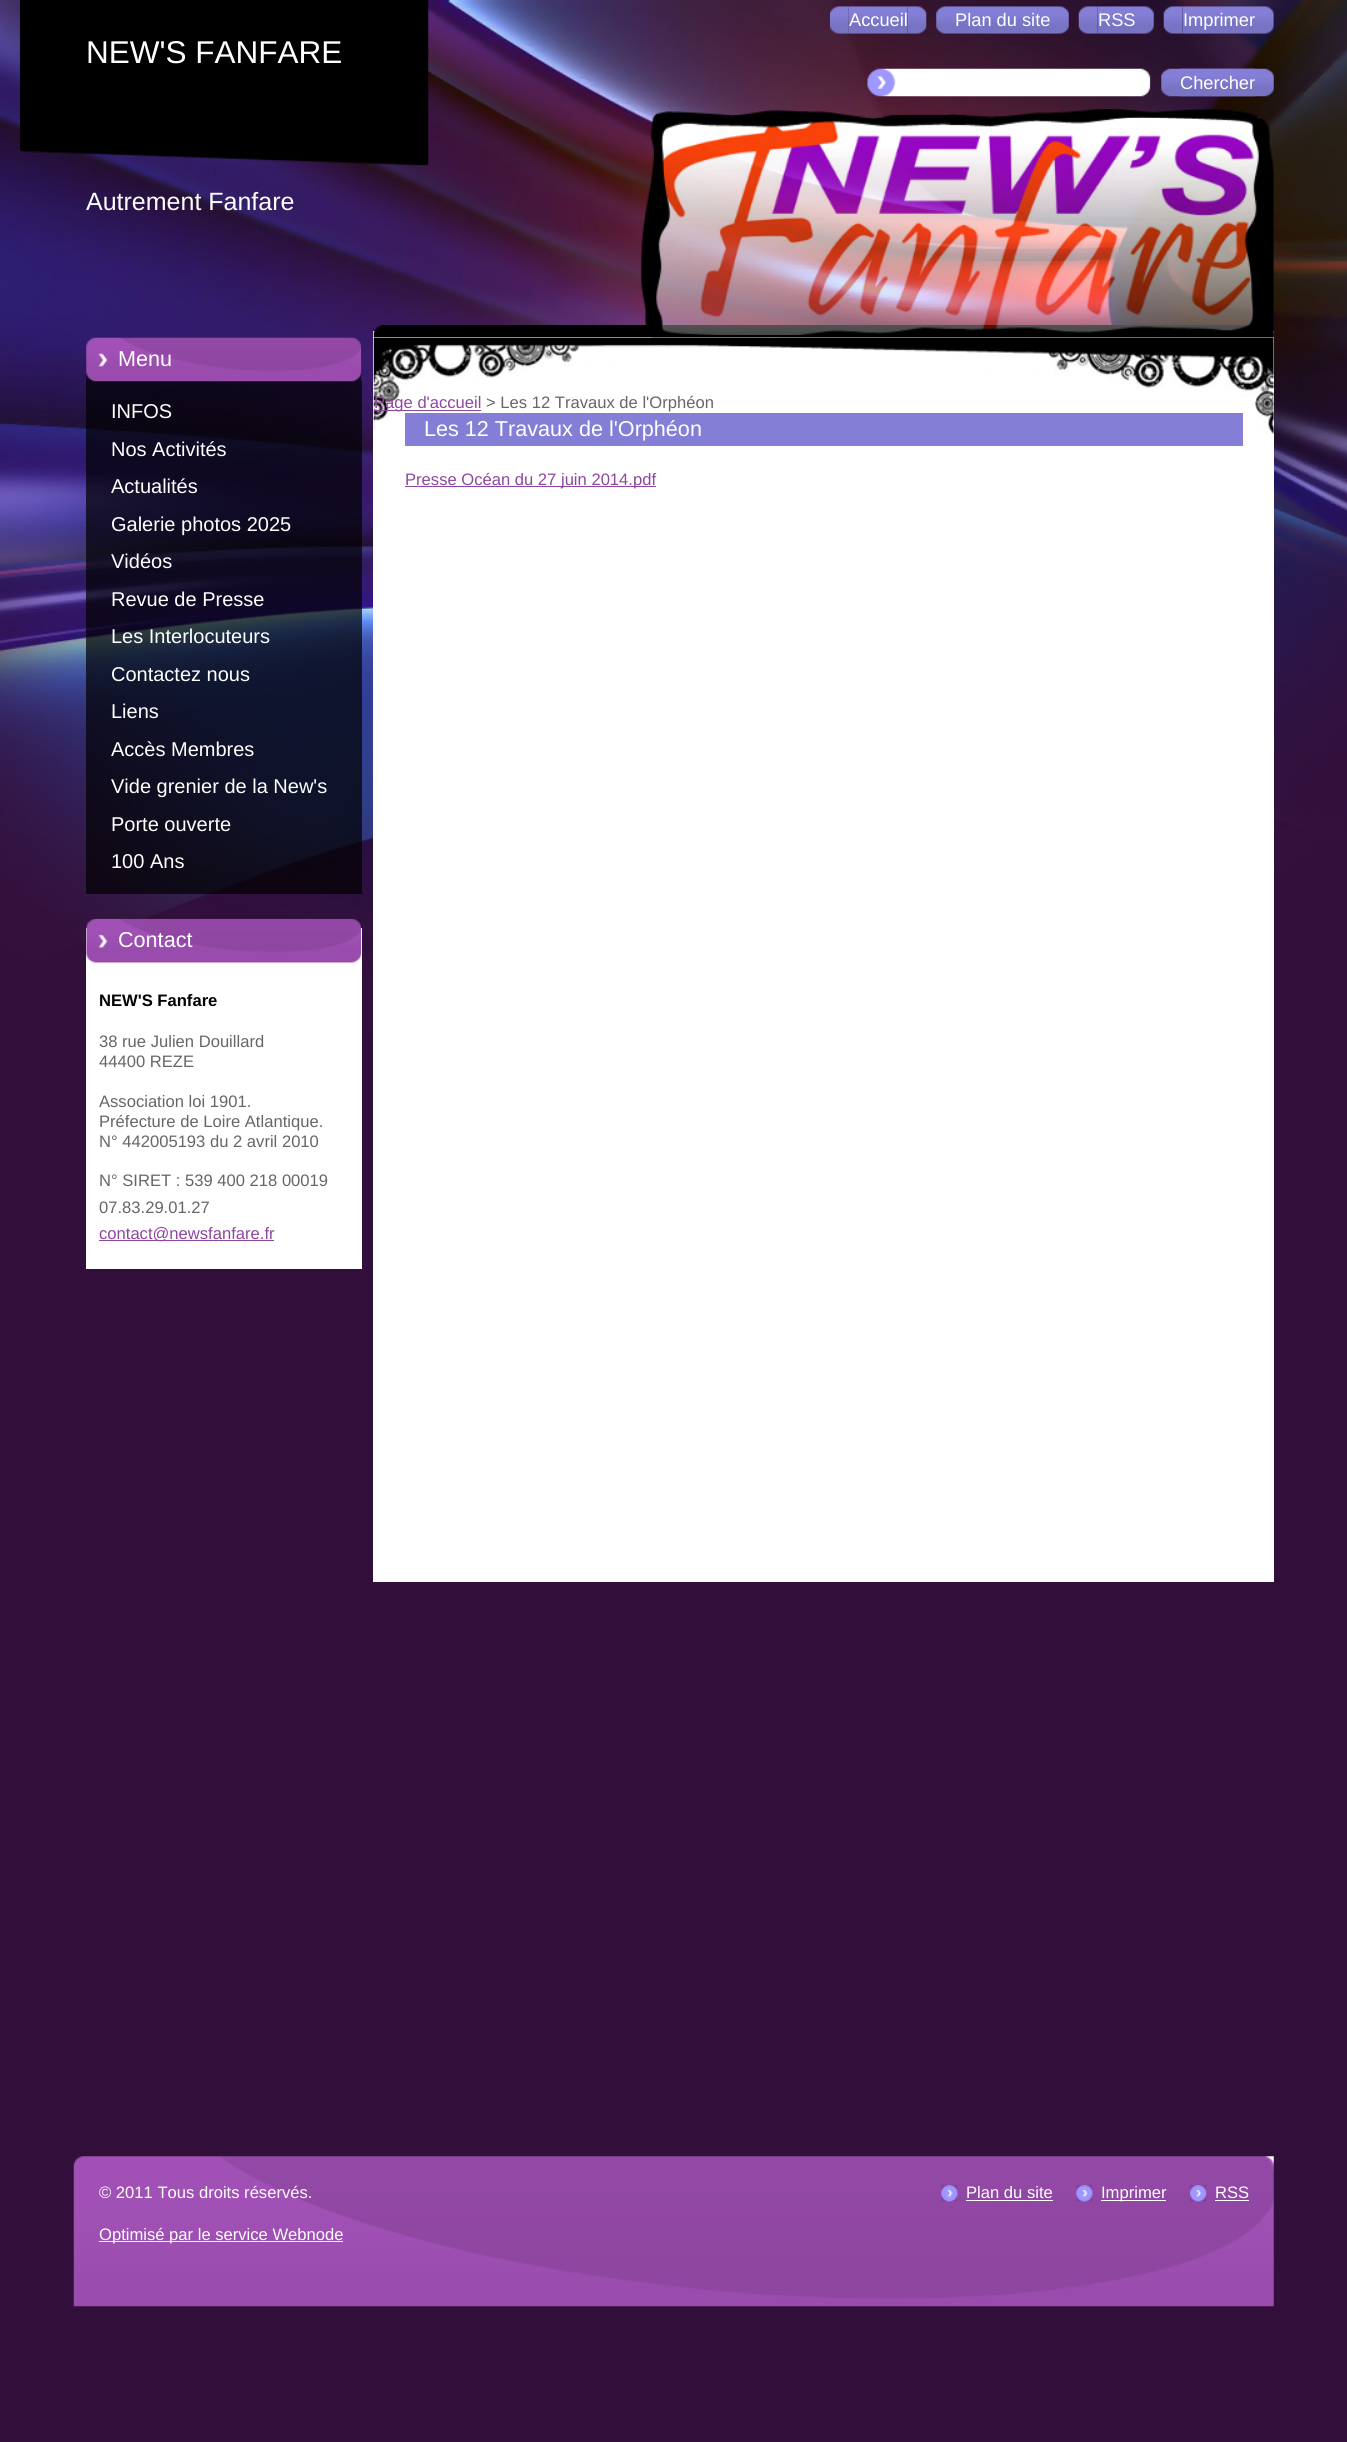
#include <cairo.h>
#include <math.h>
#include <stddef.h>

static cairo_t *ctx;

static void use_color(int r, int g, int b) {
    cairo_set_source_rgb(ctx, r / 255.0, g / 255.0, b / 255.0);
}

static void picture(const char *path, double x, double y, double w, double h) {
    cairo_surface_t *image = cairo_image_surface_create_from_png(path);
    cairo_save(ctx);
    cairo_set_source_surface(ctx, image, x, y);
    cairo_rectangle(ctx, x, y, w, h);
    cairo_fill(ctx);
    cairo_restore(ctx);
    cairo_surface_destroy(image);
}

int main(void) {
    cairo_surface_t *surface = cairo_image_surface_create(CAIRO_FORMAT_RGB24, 1347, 2442);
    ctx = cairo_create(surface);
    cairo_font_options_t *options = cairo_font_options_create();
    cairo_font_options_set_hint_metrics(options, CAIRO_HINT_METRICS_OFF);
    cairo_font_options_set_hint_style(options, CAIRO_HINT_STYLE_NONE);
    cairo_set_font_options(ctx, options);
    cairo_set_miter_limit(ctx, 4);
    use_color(50, 15, 59);
    cairo_paint(ctx);
    picture("img1.png", 0, 0, 1347, 1032);
    picture("img2.png", 20, 0, 409, 166);
    use_color(255, 255, 255);
    cairo_rectangle(ctx, 373, 331, 901, 1251);
    cairo_fill(ctx);
    picture("img3.png", 830, 6, 19, 28);
    picture("img4.png", 848, 6, 60, 28);
    cairo_select_font_face(ctx, "Liberation Sans", CAIRO_FONT_SLANT_NORMAL, CAIRO_FONT_WEIGHT_NORMAL);
    cairo_set_font_size(ctx, 18.25);
    cairo_move_to(ctx, 849, 26);
    cairo_show_text(ctx, "Accueil");
    picture("img5.png", 907, 6, 20, 28);
    picture("img6.png", 936, 6, 19, 28);
    picture("img7.png", 955, 6, 95, 28);
    cairo_move_to(ctx, 955, 26);
    cairo_show_text(ctx, "Plan du site");
    picture("img8.png", 1050, 6, 19, 28);
    picture("img9.png", 1078, 6, 20, 28);
    picture("img10.png", 1097, 6, 38, 28);
    cairo_move_to(ctx, 1098, 26);
    cairo_show_text(ctx, "RSS");
    picture("img11.png", 1135, 6, 19, 28);
    picture("img12.png", 1163, 6, 20, 28);
    picture("img13.png", 1182, 6, 73, 28);
    cairo_move_to(ctx, 1183, 26);
    cairo_show_text(ctx, "Imprimer");
    picture("img14.png", 1255, 6, 19, 28);
    cairo_set_font_size(ctx, 31.5);
    cairo_move_to(ctx, 86, 63);
    cairo_show_text(ctx, "NEW'S FANFARE");
    picture("img15.png", 867, 68, 284, 29);
    picture("img16.png", 1161, 68, 19, 29);
    picture("img17.png", 1180, 68, 75, 29);
    picture("img18.png", 1180, 68, 75, 29);
    cairo_set_font_size(ctx, 18.25);
    cairo_move_to(ctx, 1180, 89);
    cairo_show_text(ctx, "Chercher");
    picture("img19.png", 1255, 68, 19, 29);
    picture("img20.png", 373, 325, 901, 13);
    cairo_set_font_size(ctx, 25);
    cairo_move_to(ctx, 86, 210);
    cairo_show_text(ctx, "Autrement Fanfare");
    picture("img22.png", 653, 117, 607, 218);
    picture("img23.png", 373, 337, 901, 1);
    picture("img26.png", 373, 337, 901, 97);
    picture("img21.png", 640, 109, 634, 229);
    cairo_set_source_rgba(ctx, 0, 0, 0, 0.7);
    cairo_rectangle(ctx, 86, 381, 276, 513);
    cairo_fill(ctx);
    picture("img24.png", 86, 337, 276, 45);
    cairo_set_font_size(ctx, 21.6);
    use_color(255, 255, 255);
    cairo_move_to(ctx, 118, 366);
    cairo_show_text(ctx, "Menu");
    cairo_set_font_size(ctx, 20);
    cairo_move_to(ctx, 111, 418);
    cairo_show_text(ctx, "INFOS");
    cairo_move_to(ctx, 111, 456);
    cairo_show_text(ctx, "Nos Activités");
    cairo_move_to(ctx, 111, 493);
    cairo_show_text(ctx, "Actualités");
    cairo_move_to(ctx, 111, 531);
    cairo_show_text(ctx, "Galerie photos 2025");
    cairo_move_to(ctx, 111, 568);
    cairo_show_text(ctx, "Vidéos");
    cairo_move_to(ctx, 111, 606);
    cairo_show_text(ctx, "Revue de Presse");
    cairo_move_to(ctx, 111, 643);
    cairo_show_text(ctx, "Les Interlocuteurs");
    cairo_move_to(ctx, 111, 681);
    cairo_show_text(ctx, "Contactez nous");
    cairo_move_to(ctx, 111, 718);
    cairo_show_text(ctx, "Liens");
    cairo_move_to(ctx, 111, 756);
    cairo_show_text(ctx, "Accès Membres");
    cairo_move_to(ctx, 111, 793);
    cairo_show_text(ctx, "Vide grenier de la New's");
    cairo_move_to(ctx, 111, 831);
    cairo_show_text(ctx, "Porte ouverte");
    cairo_move_to(ctx, 111, 868);
    cairo_show_text(ctx, "100 Ans");
    cairo_rectangle(ctx, 86, 928, 276, 341);
    cairo_fill(ctx);
    picture("img25.png", 86, 918, 275, 45);
    cairo_set_font_size(ctx, 21.6);
    cairo_move_to(ctx, 118, 947);
    cairo_show_text(ctx, "Contact");
    cairo_select_font_face(ctx, "Liberation Sans", CAIRO_FONT_SLANT_NORMAL, CAIRO_FONT_WEIGHT_BOLD);
    cairo_set_font_size(ctx, 16.6);
    use_color(0, 0, 0);
    cairo_move_to(ctx, 99, 1006);
    cairo_show_text(ctx, "NEW'S Fanfare");
    cairo_select_font_face(ctx, "Liberation Sans", CAIRO_FONT_SLANT_NORMAL, CAIRO_FONT_WEIGHT_NORMAL);
    use_color(102, 102, 102);
    cairo_move_to(ctx, 99, 1047);
    cairo_show_text(ctx, "38 rue Julien Douillard");
    cairo_move_to(ctx, 99, 1067);
    cairo_show_text(ctx, "44400 REZE");
    cairo_move_to(ctx, 99, 1107);
    cairo_show_text(ctx, "Association loi 1901.");
    cairo_move_to(ctx, 99, 1127);
    cairo_show_text(ctx, "Préfecture de Loire Atlantique.");
    cairo_move_to(ctx, 99, 1147);
    cairo_show_text(ctx, "N° 442005193 du 2 avril 2010");
    cairo_move_to(ctx, 99, 1186);
    cairo_show_text(ctx, "N° SIRET : 539 400 218 00019");
    cairo_move_to(ctx, 99, 1213);
    cairo_show_text(ctx, "07.83.29.01.27");
    use_color(142, 70, 160);
    cairo_rectangle(ctx, 99, 1240, 136, 1);
    cairo_fill(ctx);
    cairo_move_to(ctx, 99, 1239);
    cairo_show_text(ctx, "contact@newsfanfare.fr");
    cairo_rectangle(ctx, 235, 1240, 39, 1);
    cairo_fill(ctx);
    cairo_rectangle(ctx, 374, 410, 107, 1);
    cairo_fill(ctx);
    cairo_move_to(ctx, 374, 408);
    cairo_show_text(ctx, "Page d'accueil");
    use_color(102, 102, 102);
    cairo_move_to(ctx, 486, 408);
    cairo_show_text(ctx, "> Les 12 Travaux de l'Orphéon");
    use_color(132, 126, 214);
    cairo_rectangle(ctx, 405, 413, 838, 33);
    cairo_fill(ctx);
    cairo_set_font_size(ctx, 21.6);
    use_color(255, 255, 255);
    cairo_move_to(ctx, 424, 436);
    cairo_show_text(ctx, "Les 12 Travaux de l'Orphéon");
    use_color(142, 70, 160);
    cairo_rectangle(ctx, 405, 486, 251, 1);
    cairo_fill(ctx);
    cairo_set_font_size(ctx, 16.6);
    cairo_move_to(ctx, 405, 485);
    cairo_show_text(ctx, "Presse Océan du 27 juin 2014.pdf");
    picture("img27.png", 73, 2156, 1201, 151);
    use_color(255, 255, 255);
    cairo_move_to(ctx, 99, 2198);
    cairo_show_text(ctx, "© 2011 Tous droits réservés.");
    cairo_rectangle(ctx, 99, 2241, 244, 1);
    cairo_fill(ctx);
    cairo_move_to(ctx, 99, 2240);
    cairo_show_text(ctx, "Optimisé par le service Webnode");
    picture("img28.png", 941, 2185, 17, 17);
    cairo_move_to(ctx, 966, 2198);
    cairo_show_text(ctx, "Plan du site");
    cairo_rectangle(ctx, 966, 2200, 87, 1);
    cairo_fill(ctx);
    picture("img28.png", 1076, 2185, 17, 17);
    cairo_rectangle(ctx, 1101, 2200, 65, 1);
    cairo_fill(ctx);
    cairo_move_to(ctx, 1101, 2198);
    cairo_show_text(ctx, "Imprimer");
    picture("img29.png", 1190, 2185, 17, 17);
    cairo_move_to(ctx, 1215, 2198);
    cairo_show_text(ctx, "RSS");
    cairo_rectangle(ctx, 1215, 2200, 34, 1);
    cairo_fill(ctx);
    cairo_surface_write_to_png(surface, "result.png");
    cairo_font_options_destroy(options);
    cairo_destroy(ctx);
    cairo_surface_destroy(surface);
    return 0;
}
